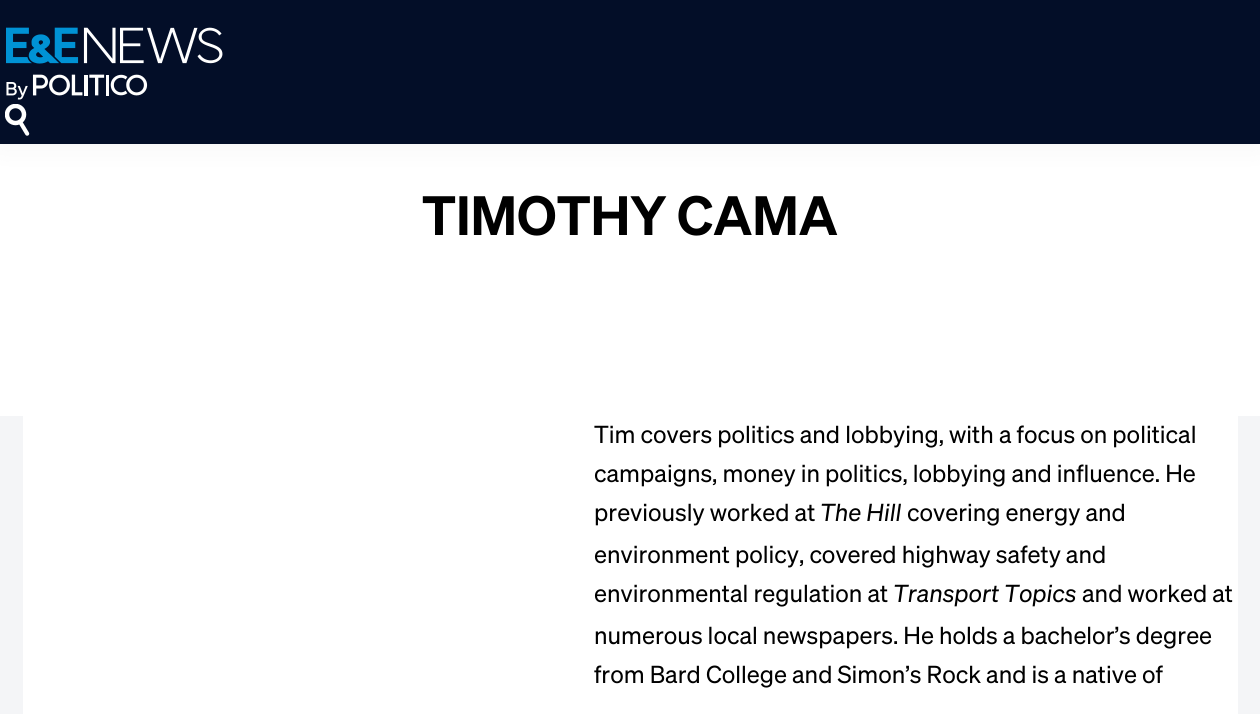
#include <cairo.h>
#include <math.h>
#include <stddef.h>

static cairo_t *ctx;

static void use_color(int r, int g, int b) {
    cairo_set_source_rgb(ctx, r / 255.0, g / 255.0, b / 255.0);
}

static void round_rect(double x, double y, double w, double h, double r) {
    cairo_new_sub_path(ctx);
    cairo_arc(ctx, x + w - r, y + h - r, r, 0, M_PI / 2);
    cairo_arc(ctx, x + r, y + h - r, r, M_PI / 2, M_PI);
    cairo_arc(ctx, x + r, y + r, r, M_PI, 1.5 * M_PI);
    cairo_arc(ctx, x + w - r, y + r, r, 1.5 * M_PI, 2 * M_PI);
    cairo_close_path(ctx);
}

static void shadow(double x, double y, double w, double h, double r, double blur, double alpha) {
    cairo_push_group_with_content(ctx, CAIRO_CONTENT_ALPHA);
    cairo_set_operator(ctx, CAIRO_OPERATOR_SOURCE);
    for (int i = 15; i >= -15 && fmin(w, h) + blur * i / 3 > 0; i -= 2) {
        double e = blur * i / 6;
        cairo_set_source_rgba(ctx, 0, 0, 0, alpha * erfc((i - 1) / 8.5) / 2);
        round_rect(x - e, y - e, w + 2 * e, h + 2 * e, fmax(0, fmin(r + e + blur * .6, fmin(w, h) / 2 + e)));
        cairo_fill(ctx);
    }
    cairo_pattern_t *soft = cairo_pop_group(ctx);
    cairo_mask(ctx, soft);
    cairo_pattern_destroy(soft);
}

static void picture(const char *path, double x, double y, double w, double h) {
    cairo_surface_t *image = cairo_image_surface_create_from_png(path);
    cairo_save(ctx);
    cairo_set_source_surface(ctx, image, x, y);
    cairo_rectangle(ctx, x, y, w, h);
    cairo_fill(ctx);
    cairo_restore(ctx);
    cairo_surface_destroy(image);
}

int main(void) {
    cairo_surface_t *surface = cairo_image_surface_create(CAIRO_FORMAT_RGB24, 1260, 714);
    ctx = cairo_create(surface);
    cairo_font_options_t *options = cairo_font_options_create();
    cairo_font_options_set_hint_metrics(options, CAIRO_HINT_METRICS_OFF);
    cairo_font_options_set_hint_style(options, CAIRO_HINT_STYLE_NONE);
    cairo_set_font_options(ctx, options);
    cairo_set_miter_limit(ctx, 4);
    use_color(255, 255, 255);
    cairo_paint(ctx);
    use_color(0, 0, 0);
    shadow(0, 0, 1260, 144, 0, 15, 0.05);
    use_color(3, 14, 40);
    cairo_rectangle(ctx, 0, 0, 1260, 144);
    cairo_fill(ctx);
    picture("img1.png", 6, 27, 217, 73);
    picture("img2.png", 5, 104, 25, 32);
    cairo_select_font_face(ctx, "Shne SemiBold", CAIRO_FONT_SLANT_NORMAL, CAIRO_FONT_WEIGHT_NORMAL);
    cairo_set_font_size(ctx, 54);
    use_color(0, 0, 0);
    cairo_move_to(ctx, 422, 235);
    cairo_show_text(ctx, "TIMOTHY CAMA");
    use_color(244, 245, 247);
    cairo_rectangle(ctx, 0, 416, 1260, 298);
    cairo_fill(ctx);
    use_color(255, 255, 255);
    cairo_rectangle(ctx, 23, 416, 1215, 298);
    cairo_fill(ctx);
    cairo_select_font_face(ctx, "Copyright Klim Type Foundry", CAIRO_FONT_SLANT_NORMAL, CAIRO_FONT_WEIGHT_NORMAL);
    cairo_set_font_size(ctx, 24);
    use_color(0, 0, 0);
    cairo_move_to(ctx, 594, 443);
    cairo_show_text(ctx, "Tim covers politics and lobbying, with a focus on political");
    cairo_move_to(ctx, 594, 482);
    cairo_show_text(ctx, "campaigns, money in politics, lobbying and influence. He");
    cairo_move_to(ctx, 594, 521);
    cairo_show_text(ctx, "previously worked at");
    cairo_select_font_face(ctx, "Shne", CAIRO_FONT_SLANT_ITALIC, CAIRO_FONT_WEIGHT_NORMAL);
    cairo_move_to(ctx, 820, 521);
    cairo_show_text(ctx, "The Hill");
    cairo_select_font_face(ctx, "Copyright Klim Type Foundry", CAIRO_FONT_SLANT_NORMAL, CAIRO_FONT_WEIGHT_NORMAL);
    cairo_move_to(ctx, 907, 521);
    cairo_show_text(ctx, "covering energy and");
    cairo_move_to(ctx, 594, 563);
    cairo_show_text(ctx, "environment policy, covered highway safety and");
    cairo_move_to(ctx, 594, 602);
    cairo_show_text(ctx, "environmental regulation at");
    cairo_select_font_face(ctx, "Shne", CAIRO_FONT_SLANT_ITALIC, CAIRO_FONT_WEIGHT_NORMAL);
    cairo_move_to(ctx, 893, 602);
    cairo_show_text(ctx, "Transport Topics");
    cairo_select_font_face(ctx, "Copyright Klim Type Foundry", CAIRO_FONT_SLANT_NORMAL, CAIRO_FONT_WEIGHT_NORMAL);
    cairo_move_to(ctx, 1082, 602);
    cairo_show_text(ctx, "and worked at");
    cairo_move_to(ctx, 594, 644);
    cairo_show_text(ctx, "numerous local newspapers. He holds a bachelor’s degree");
    cairo_move_to(ctx, 594, 683);
    cairo_show_text(ctx, "from Bard College and Simon’s Rock and is a native of");
    cairo_surface_write_to_png(surface, "result.png");
    cairo_font_options_destroy(options);
    cairo_destroy(ctx);
    cairo_surface_destroy(surface);
    return 0;
}
